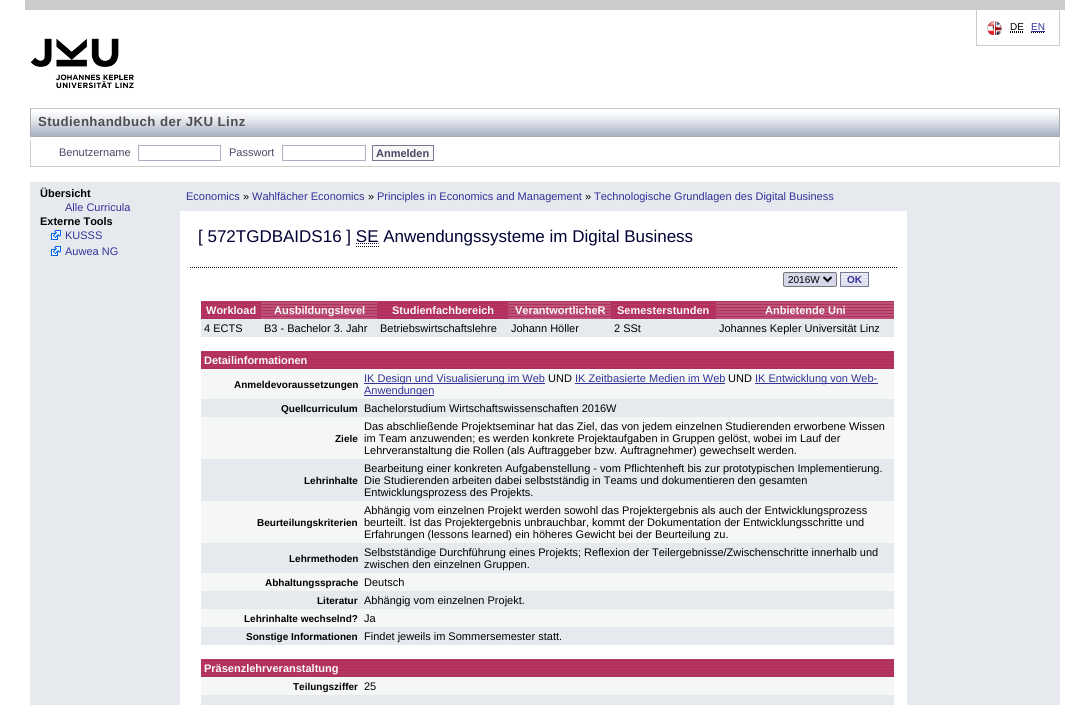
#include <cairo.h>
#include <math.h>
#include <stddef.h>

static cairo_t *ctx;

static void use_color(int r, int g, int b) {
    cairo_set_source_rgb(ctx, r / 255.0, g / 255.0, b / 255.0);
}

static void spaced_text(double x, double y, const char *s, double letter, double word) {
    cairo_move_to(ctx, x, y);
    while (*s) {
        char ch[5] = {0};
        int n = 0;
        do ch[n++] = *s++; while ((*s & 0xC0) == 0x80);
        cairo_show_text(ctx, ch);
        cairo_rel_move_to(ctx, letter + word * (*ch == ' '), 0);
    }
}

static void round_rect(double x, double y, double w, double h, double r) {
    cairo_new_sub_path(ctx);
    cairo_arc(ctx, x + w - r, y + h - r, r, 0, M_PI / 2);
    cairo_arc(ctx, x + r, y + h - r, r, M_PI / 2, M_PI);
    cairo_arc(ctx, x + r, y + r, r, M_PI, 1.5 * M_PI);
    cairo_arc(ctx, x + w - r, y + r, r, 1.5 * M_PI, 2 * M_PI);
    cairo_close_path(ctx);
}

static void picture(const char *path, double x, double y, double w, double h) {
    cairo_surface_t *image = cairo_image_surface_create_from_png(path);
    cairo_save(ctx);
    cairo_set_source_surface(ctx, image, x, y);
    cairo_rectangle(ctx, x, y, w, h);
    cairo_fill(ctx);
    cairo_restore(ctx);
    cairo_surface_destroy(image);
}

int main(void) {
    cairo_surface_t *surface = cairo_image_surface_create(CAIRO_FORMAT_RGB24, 1090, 705);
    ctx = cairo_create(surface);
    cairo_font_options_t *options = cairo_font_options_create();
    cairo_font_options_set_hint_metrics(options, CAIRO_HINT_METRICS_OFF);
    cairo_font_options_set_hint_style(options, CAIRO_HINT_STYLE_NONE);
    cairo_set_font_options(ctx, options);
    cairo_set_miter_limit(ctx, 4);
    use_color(255, 255, 255);
    cairo_paint(ctx);
    use_color(204, 204, 204);
    cairo_rectangle(ctx, 25, 0, 1040, 10);
    cairo_fill(ctx);
    cairo_rectangle(ctx, 1059, 10, 1, 36);
    cairo_fill(ctx);
    cairo_rectangle(ctx, 976, 45, 84, 1);
    cairo_fill(ctx);
    cairo_rectangle(ctx, 976, 10, 1, 36);
    cairo_fill(ctx);
    picture("img1.png", 987, 21, 15, 14);
    cairo_select_font_face(ctx, "Liberation Sans", CAIRO_FONT_SLANT_NORMAL, CAIRO_FONT_WEIGHT_NORMAL);
    cairo_set_font_size(ctx, 10);
    use_color(0, 0, 0);
    cairo_move_to(ctx, 1010, 30);
    cairo_show_text(ctx, "DE");
    cairo_new_path(ctx);
    cairo_move_to(ctx, 1010, 32.5);
    cairo_line_to(ctx, 1023, 32.5);
    cairo_move_to(ctx, 1010, 31.5);
    cairo_line_to(ctx, 1023.5, 31.5);
    cairo_set_line_width(ctx, 1);
    cairo_set_dash(ctx, (double[]){1, 1}, 2, 0);
    cairo_stroke(ctx);
    use_color(51, 50, 152);
    cairo_move_to(ctx, 1031, 30);
    cairo_show_text(ctx, "EN");
    cairo_new_path(ctx);
    cairo_move_to(ctx, 1031, 32.5);
    cairo_line_to(ctx, 1045, 32.5);
    use_color(0, 0, 0);
    cairo_stroke(ctx);
    use_color(51, 50, 152);
    cairo_rectangle(ctx, 1031, 31, 14, 1);
    cairo_fill(ctx);
    picture("img2.png", 30, 38, 104, 51);
    picture("img3.png", 31, 108, 1028, 28);
    use_color(174, 174, 174);
    cairo_rectangle(ctx, 1059, 108, 1, 29);
    cairo_fill(ctx);
    cairo_rectangle(ctx, 30, 136, 1030, 1);
    cairo_fill(ctx);
    cairo_rectangle(ctx, 30, 108, 1, 29);
    cairo_fill(ctx);
    cairo_select_font_face(ctx, "Liberation Sans", CAIRO_FONT_SLANT_NORMAL, CAIRO_FONT_WEIGHT_BOLD);
    cairo_set_font_size(ctx, 13.25);
    use_color(78, 78, 78);
    spaced_text(38, 126, "Studienhandbuch der JKU Linz", 0.4, 0);
    use_color(204, 204, 204);
    cairo_rectangle(ctx, 1059, 140, 1, 27);
    cairo_fill(ctx);
    cairo_rectangle(ctx, 30, 166, 1030, 1);
    cairo_fill(ctx);
    cairo_rectangle(ctx, 30, 140, 1, 27);
    cairo_fill(ctx);
    cairo_select_font_face(ctx, "Liberation Sans", CAIRO_FONT_SLANT_NORMAL, CAIRO_FONT_WEIGHT_NORMAL);
    cairo_set_font_size(ctx, 11);
    use_color(71, 71, 102);
    cairo_move_to(ctx, 59, 156);
    cairo_show_text(ctx, "Benutzername");
    cairo_rectangle(ctx, 138.5, 145.5, 82, 15);
    use_color(176, 174, 195);
    cairo_set_dash(ctx, NULL, 0, 0);
    cairo_stroke(ctx);
    use_color(71, 71, 102);
    cairo_move_to(ctx, 229, 156);
    cairo_show_text(ctx, "Passwort");
    cairo_rectangle(ctx, 282.5, 145.5, 83, 15);
    use_color(176, 174, 195);
    cairo_stroke(ctx);
    use_color(247, 247, 247);
    cairo_rectangle(ctx, 372.5, 145.5, 61, 15);
    cairo_fill_preserve(ctx);
    use_color(116, 120, 149);
    cairo_stroke(ctx);
    cairo_select_font_face(ctx, "Liberation Sans", CAIRO_FONT_SLANT_NORMAL, CAIRO_FONT_WEIGHT_BOLD);
    use_color(71, 71, 102);
    cairo_move_to(ctx, 376, 157);
    cairo_show_text(ctx, "Anmelden");
    use_color(230, 233, 238);
    cairo_rectangle(ctx, 30, 182, 150, 523);
    cairo_fill(ctx);
    use_color(0, 0, 0);
    cairo_move_to(ctx, 40, 197);
    cairo_show_text(ctx, "Übersicht");
    cairo_select_font_face(ctx, "Liberation Sans", CAIRO_FONT_SLANT_NORMAL, CAIRO_FONT_WEIGHT_NORMAL);
    use_color(51, 50, 152);
    cairo_move_to(ctx, 65, 211);
    cairo_show_text(ctx, "Alle Curricula");
    cairo_select_font_face(ctx, "Liberation Sans", CAIRO_FONT_SLANT_NORMAL, CAIRO_FONT_WEIGHT_BOLD);
    use_color(0, 0, 0);
    cairo_move_to(ctx, 40, 225);
    cairo_show_text(ctx, "Externe Tools");
    picture("img4.png", 51, 230, 10, 10);
    cairo_select_font_face(ctx, "Liberation Sans", CAIRO_FONT_SLANT_NORMAL, CAIRO_FONT_WEIGHT_NORMAL);
    use_color(51, 50, 152);
    cairo_move_to(ctx, 65, 239);
    cairo_show_text(ctx, "KUSSS");
    picture("img4.png", 51, 246, 10, 10);
    cairo_move_to(ctx, 65, 255);
    cairo_show_text(ctx, "Auwea NG");
    use_color(230, 233, 238);
    cairo_rectangle(ctx, 180, 182, 880, 29);
    cairo_fill(ctx);
    use_color(51, 50, 152);
    cairo_move_to(ctx, 186, 200);
    cairo_show_text(ctx, "Economics");
    use_color(0, 0, 0);
    cairo_move_to(ctx, 243, 200);
    cairo_show_text(ctx, "»");
    use_color(51, 50, 152);
    cairo_move_to(ctx, 252, 200);
    cairo_show_text(ctx, "Wahlfächer Economics");
    use_color(0, 0, 0);
    cairo_move_to(ctx, 368, 200);
    cairo_show_text(ctx, "»");
    use_color(51, 50, 152);
    cairo_move_to(ctx, 377, 200);
    cairo_show_text(ctx, "Principles in Economics and Management");
    use_color(0, 0, 0);
    cairo_move_to(ctx, 585, 200);
    cairo_show_text(ctx, "»");
    use_color(51, 50, 152);
    cairo_move_to(ctx, 594, 200);
    cairo_show_text(ctx, "Technologische Grundlagen des Digital Business");
    use_color(230, 233, 238);
    cairo_rectangle(ctx, 907, 210, 1, 495);
    cairo_fill(ctx);
    cairo_new_path(ctx);
    cairo_move_to(ctx, 190, 267.5);
    cairo_line_to(ctx, 897, 267.5);
    use_color(0, 0, 0);
    cairo_set_dash(ctx, (double[]){1, 1}, 2, 0);
    cairo_stroke(ctx);
    cairo_set_font_size(ctx, 17);
    use_color(0, 0, 51);
    cairo_move_to(ctx, 198, 242);
    cairo_show_text(ctx, "[ 572TGDBAIDS16 ] SE Anwendungssysteme im Digital Business");
    cairo_new_path(ctx);
    cairo_move_to(ctx, 356, 243.5);
    cairo_line_to(ctx, 378.5, 243.5);
    cairo_stroke(ctx);
    cairo_new_path(ctx);
    cairo_move_to(ctx, 356, 246.5);
    cairo_line_to(ctx, 379, 246.5);
    use_color(0, 0, 0);
    cairo_stroke(ctx);
    use_color(214, 215, 233);
    round_rect(783.5, 272.5, 53, 14, 1.5);
    cairo_fill_preserve(ctx);
    use_color(118, 118, 118);
    cairo_set_dash(ctx, NULL, 0, 0);
    cairo_stroke(ctx);
    cairo_new_path(ctx);
    cairo_move_to(ctx, 823.5, 277);
    cairo_line_to(ctx, 827.5, 281);
    cairo_line_to(ctx, 831.5, 277);
    use_color(0, 0, 0);
    cairo_set_line_width(ctx, 2);
    cairo_stroke(ctx);
    cairo_set_font_size(ctx, 10);
    cairo_move_to(ctx, 788, 283);
    cairo_show_text(ctx, "2016W");
    picture("img5.png", 841, 273, 27, 13);
    cairo_rectangle(ctx, 840.5, 272.5, 28, 14);
    use_color(116, 120, 149);
    cairo_set_line_width(ctx, 1);
    cairo_stroke(ctx);
    cairo_select_font_face(ctx, "Liberation Sans", CAIRO_FONT_SLANT_NORMAL, CAIRO_FONT_WEIGHT_BOLD);
    use_color(51, 50, 152);
    cairo_move_to(ctx, 847, 283);
    cairo_show_text(ctx, "OK");
    picture("img6.png", 201, 301, 60, 18);
    cairo_set_font_size(ctx, 11);
    use_color(247, 247, 247);
    cairo_move_to(ctx, 206, 314);
    cairo_show_text(ctx, "Workload");
    picture("img7.png", 261, 301, 116, 18);
    cairo_move_to(ctx, 274, 314);
    cairo_show_text(ctx, "Ausbildungslevel");
    picture("img8.png", 377, 301, 131, 18);
    cairo_move_to(ctx, 392, 314);
    cairo_show_text(ctx, "Studienfachbereich");
    picture("img9.png", 508, 301, 103, 18);
    cairo_move_to(ctx, 515, 314);
    cairo_show_text(ctx, "VerantwortlicheR");
    picture("img10.png", 611, 301, 105, 18);
    cairo_move_to(ctx, 617, 314);
    cairo_show_text(ctx, "Semesterstunden");
    picture("img11.png", 716, 301, 178, 18);
    cairo_move_to(ctx, 765, 314);
    cairo_show_text(ctx, "Anbietende Uni");
    use_color(230, 233, 237);
    cairo_rectangle(ctx, 201, 319, 693, 18);
    cairo_fill(ctx);
    cairo_select_font_face(ctx, "Liberation Sans", CAIRO_FONT_SLANT_NORMAL, CAIRO_FONT_WEIGHT_NORMAL);
    use_color(0, 0, 0);
    cairo_move_to(ctx, 204, 332);
    cairo_show_text(ctx, "4 ECTS");
    cairo_move_to(ctx, 264, 332);
    cairo_show_text(ctx, "B3 - Bachelor 3. Jahr");
    cairo_move_to(ctx, 380, 332);
    cairo_show_text(ctx, "Betriebswirtschaftslehre");
    cairo_move_to(ctx, 511, 332);
    cairo_show_text(ctx, "Johann Höller");
    cairo_move_to(ctx, 614, 332);
    cairo_show_text(ctx, "2 SSt");
    cairo_move_to(ctx, 719, 332);
    cairo_show_text(ctx, "Johannes Kepler Universität Linz");
    picture("img12.png", 201, 351, 693, 18);
    cairo_select_font_face(ctx, "Liberation Sans", CAIRO_FONT_SLANT_NORMAL, CAIRO_FONT_WEIGHT_BOLD);
    use_color(247, 247, 247);
    cairo_move_to(ctx, 204, 364);
    cairo_show_text(ctx, "Detailinformationen");
    use_color(245, 247, 247);
    cairo_rectangle(ctx, 201, 369, 693, 30);
    cairo_fill(ctx);
    cairo_set_font_size(ctx, 10);
    use_color(0, 0, 0);
    cairo_move_to(ctx, 234, 388);
    cairo_show_text(ctx, "Anmeldevoraussetzungen");
    use_color(51, 50, 152);
    cairo_rectangle(ctx, 364, 383, 181, 1);
    cairo_fill(ctx);
    cairo_select_font_face(ctx, "Liberation Sans", CAIRO_FONT_SLANT_NORMAL, CAIRO_FONT_WEIGHT_NORMAL);
    cairo_set_font_size(ctx, 11);
    cairo_move_to(ctx, 364, 382);
    cairo_show_text(ctx, "IK Design und Visualisierung im Web");
    use_color(0, 0, 0);
    cairo_move_to(ctx, 548, 382);
    cairo_show_text(ctx, "UND");
    use_color(51, 50, 152);
    cairo_move_to(ctx, 575, 382);
    cairo_show_text(ctx, "IK Zeitbasierte Medien im Web");
    cairo_rectangle(ctx, 575, 383, 150, 1);
    cairo_fill(ctx);
    use_color(0, 0, 0);
    cairo_move_to(ctx, 728, 382);
    cairo_show_text(ctx, "UND");
    use_color(51, 50, 152);
    cairo_rectangle(ctx, 755, 383, 123, 1);
    cairo_fill(ctx);
    cairo_move_to(ctx, 755, 382);
    cairo_show_text(ctx, "IK Entwicklung von Web-");
    cairo_rectangle(ctx, 364, 395, 70, 1);
    cairo_fill(ctx);
    cairo_move_to(ctx, 364, 394);
    cairo_show_text(ctx, "Anwendungen");
    use_color(230, 233, 237);
    cairo_rectangle(ctx, 201, 399, 693, 18);
    cairo_fill(ctx);
    cairo_select_font_face(ctx, "Liberation Sans", CAIRO_FONT_SLANT_NORMAL, CAIRO_FONT_WEIGHT_BOLD);
    cairo_set_font_size(ctx, 10);
    use_color(0, 0, 0);
    cairo_move_to(ctx, 281, 412);
    cairo_show_text(ctx, "Quellcurriculum");
    cairo_select_font_face(ctx, "Liberation Sans", CAIRO_FONT_SLANT_NORMAL, CAIRO_FONT_WEIGHT_NORMAL);
    cairo_set_font_size(ctx, 11);
    cairo_move_to(ctx, 364, 412);
    cairo_show_text(ctx, "Bachelorstudium Wirtschaftswissenschaften 2016W");
    use_color(245, 247, 247);
    cairo_rectangle(ctx, 201, 417, 693, 42);
    cairo_fill(ctx);
    cairo_select_font_face(ctx, "Liberation Sans", CAIRO_FONT_SLANT_NORMAL, CAIRO_FONT_WEIGHT_BOLD);
    cairo_set_font_size(ctx, 10);
    use_color(0, 0, 0);
    cairo_move_to(ctx, 335, 442);
    cairo_show_text(ctx, "Ziele");
    cairo_select_font_face(ctx, "Liberation Sans", CAIRO_FONT_SLANT_NORMAL, CAIRO_FONT_WEIGHT_NORMAL);
    cairo_set_font_size(ctx, 11);
    cairo_move_to(ctx, 364, 430);
    cairo_show_text(ctx, "Das abschließende Projektseminar hat das Ziel, das von jedem einzelnen Studierenden erworbene Wissen");
    cairo_move_to(ctx, 364, 442);
    cairo_show_text(ctx, "im Team anzuwenden; es werden konkrete Projektaufgaben in Gruppen gelöst, wobei im Lauf der");
    cairo_move_to(ctx, 364, 454);
    cairo_show_text(ctx, "Lehrveranstaltung die Rollen (als Auftraggeber bzw. Auftragnehmer) gewechselt werden.");
    use_color(230, 233, 237);
    cairo_rectangle(ctx, 201, 459, 693, 42);
    cairo_fill(ctx);
    cairo_select_font_face(ctx, "Liberation Sans", CAIRO_FONT_SLANT_NORMAL, CAIRO_FONT_WEIGHT_BOLD);
    cairo_set_font_size(ctx, 10);
    use_color(0, 0, 0);
    cairo_move_to(ctx, 304, 484);
    cairo_show_text(ctx, "Lehrinhalte");
    cairo_select_font_face(ctx, "Liberation Sans", CAIRO_FONT_SLANT_NORMAL, CAIRO_FONT_WEIGHT_NORMAL);
    cairo_set_font_size(ctx, 11);
    cairo_move_to(ctx, 364, 472);
    cairo_show_text(ctx, "Bearbeitung einer konkreten Aufgabenstellung - vom Pflichtenheft bis zur prototypischen Implementierung.");
    cairo_move_to(ctx, 364, 484);
    cairo_show_text(ctx, "Die Studierenden arbeiten dabei selbstständig in Teams und dokumentieren den gesamten");
    cairo_move_to(ctx, 364, 496);
    cairo_show_text(ctx, "Entwicklungsprozess des Projekts.");
    use_color(245, 247, 247);
    cairo_rectangle(ctx, 201, 501, 693, 42);
    cairo_fill(ctx);
    cairo_select_font_face(ctx, "Liberation Sans", CAIRO_FONT_SLANT_NORMAL, CAIRO_FONT_WEIGHT_BOLD);
    cairo_set_font_size(ctx, 10);
    use_color(0, 0, 0);
    cairo_move_to(ctx, 257, 526);
    cairo_show_text(ctx, "Beurteilungskriterien");
    cairo_select_font_face(ctx, "Liberation Sans", CAIRO_FONT_SLANT_NORMAL, CAIRO_FONT_WEIGHT_NORMAL);
    cairo_set_font_size(ctx, 11);
    cairo_move_to(ctx, 364, 514);
    cairo_show_text(ctx, "Abhängig vom einzelnen Projekt werden sowohl das Projektergebnis als auch der Entwicklungsprozess");
    cairo_move_to(ctx, 364, 526);
    cairo_show_text(ctx, "beurteilt. Ist das Projektergebnis unbrauchbar, kommt der Dokumentation der Entwicklungsschritte und");
    cairo_move_to(ctx, 364, 538);
    cairo_show_text(ctx, "Erfahrungen (lessons learned) ein höheres Gewicht bei der Beurteilung zu.");
    use_color(230, 233, 237);
    cairo_rectangle(ctx, 201, 543, 693, 30);
    cairo_fill(ctx);
    cairo_select_font_face(ctx, "Liberation Sans", CAIRO_FONT_SLANT_NORMAL, CAIRO_FONT_WEIGHT_BOLD);
    cairo_set_font_size(ctx, 10);
    use_color(0, 0, 0);
    cairo_move_to(ctx, 289, 562);
    cairo_show_text(ctx, "Lehrmethoden");
    cairo_select_font_face(ctx, "Liberation Sans", CAIRO_FONT_SLANT_NORMAL, CAIRO_FONT_WEIGHT_NORMAL);
    cairo_set_font_size(ctx, 11);
    cairo_move_to(ctx, 364, 556);
    cairo_show_text(ctx, "Selbstständige Durchführung eines Projekts; Reflexion der Teilergebnisse/Zwischenschritte innerhalb und");
    cairo_move_to(ctx, 364, 568);
    cairo_show_text(ctx, "zwischen den einzelnen Gruppen.");
    use_color(245, 247, 247);
    cairo_rectangle(ctx, 201, 573, 693, 18);
    cairo_fill(ctx);
    cairo_select_font_face(ctx, "Liberation Sans", CAIRO_FONT_SLANT_NORMAL, CAIRO_FONT_WEIGHT_BOLD);
    cairo_set_font_size(ctx, 10);
    use_color(0, 0, 0);
    cairo_move_to(ctx, 265, 586);
    cairo_show_text(ctx, "Abhaltungssprache");
    cairo_select_font_face(ctx, "Liberation Sans", CAIRO_FONT_SLANT_NORMAL, CAIRO_FONT_WEIGHT_NORMAL);
    cairo_set_font_size(ctx, 11);
    cairo_move_to(ctx, 364, 586);
    cairo_show_text(ctx, "Deutsch");
    use_color(230, 233, 237);
    cairo_rectangle(ctx, 201, 591, 693, 18);
    cairo_fill(ctx);
    cairo_select_font_face(ctx, "Liberation Sans", CAIRO_FONT_SLANT_NORMAL, CAIRO_FONT_WEIGHT_BOLD);
    cairo_set_font_size(ctx, 10);
    use_color(0, 0, 0);
    cairo_move_to(ctx, 317, 604);
    cairo_show_text(ctx, "Literatur");
    cairo_select_font_face(ctx, "Liberation Sans", CAIRO_FONT_SLANT_NORMAL, CAIRO_FONT_WEIGHT_NORMAL);
    cairo_set_font_size(ctx, 11);
    cairo_move_to(ctx, 364, 604);
    cairo_show_text(ctx, "Abhängig vom einzelnen Projekt.");
    use_color(245, 247, 247);
    cairo_rectangle(ctx, 201, 609, 693, 18);
    cairo_fill(ctx);
    cairo_select_font_face(ctx, "Liberation Sans", CAIRO_FONT_SLANT_NORMAL, CAIRO_FONT_WEIGHT_BOLD);
    cairo_set_font_size(ctx, 10);
    use_color(0, 0, 0);
    cairo_move_to(ctx, 244, 622);
    cairo_show_text(ctx, "Lehrinhalte wechselnd?");
    cairo_select_font_face(ctx, "Liberation Sans", CAIRO_FONT_SLANT_NORMAL, CAIRO_FONT_WEIGHT_NORMAL);
    cairo_set_font_size(ctx, 11);
    cairo_move_to(ctx, 364, 622);
    cairo_show_text(ctx, "Ja");
    use_color(230, 233, 237);
    cairo_rectangle(ctx, 201, 627, 693, 18);
    cairo_fill(ctx);
    cairo_select_font_face(ctx, "Liberation Sans", CAIRO_FONT_SLANT_NORMAL, CAIRO_FONT_WEIGHT_BOLD);
    cairo_set_font_size(ctx, 10);
    use_color(0, 0, 0);
    cairo_move_to(ctx, 246, 640);
    cairo_show_text(ctx, "Sonstige Informationen");
    cairo_select_font_face(ctx, "Liberation Sans", CAIRO_FONT_SLANT_NORMAL, CAIRO_FONT_WEIGHT_NORMAL);
    cairo_set_font_size(ctx, 11);
    cairo_move_to(ctx, 364, 640);
    cairo_show_text(ctx, "Findet jeweils im Sommersemester statt.");
    picture("img12.png", 201, 659, 693, 18);
    cairo_select_font_face(ctx, "Liberation Sans", CAIRO_FONT_SLANT_NORMAL, CAIRO_FONT_WEIGHT_BOLD);
    use_color(247, 247, 247);
    cairo_move_to(ctx, 204, 672);
    cairo_show_text(ctx, "Präsenzlehrveranstaltung");
    use_color(245, 247, 247);
    cairo_rectangle(ctx, 201, 677, 693, 18);
    cairo_fill(ctx);
    cairo_set_font_size(ctx, 10);
    use_color(0, 0, 0);
    cairo_move_to(ctx, 293, 690);
    cairo_show_text(ctx, "Teilungsziffer");
    cairo_select_font_face(ctx, "Liberation Sans", CAIRO_FONT_SLANT_NORMAL, CAIRO_FONT_WEIGHT_NORMAL);
    cairo_set_font_size(ctx, 11);
    cairo_move_to(ctx, 364, 690);
    cairo_show_text(ctx, "25");
    use_color(230, 233, 237);
    cairo_rectangle(ctx, 201, 695, 693, 10);
    cairo_fill(ctx);
    use_color(230, 233, 238);
    cairo_rectangle(ctx, 908, 211, 152, 494);
    cairo_fill(ctx);
    cairo_surface_write_to_png(surface, "result.png");
    cairo_font_options_destroy(options);
    cairo_destroy(ctx);
    cairo_surface_destroy(surface);
    return 0;
}
